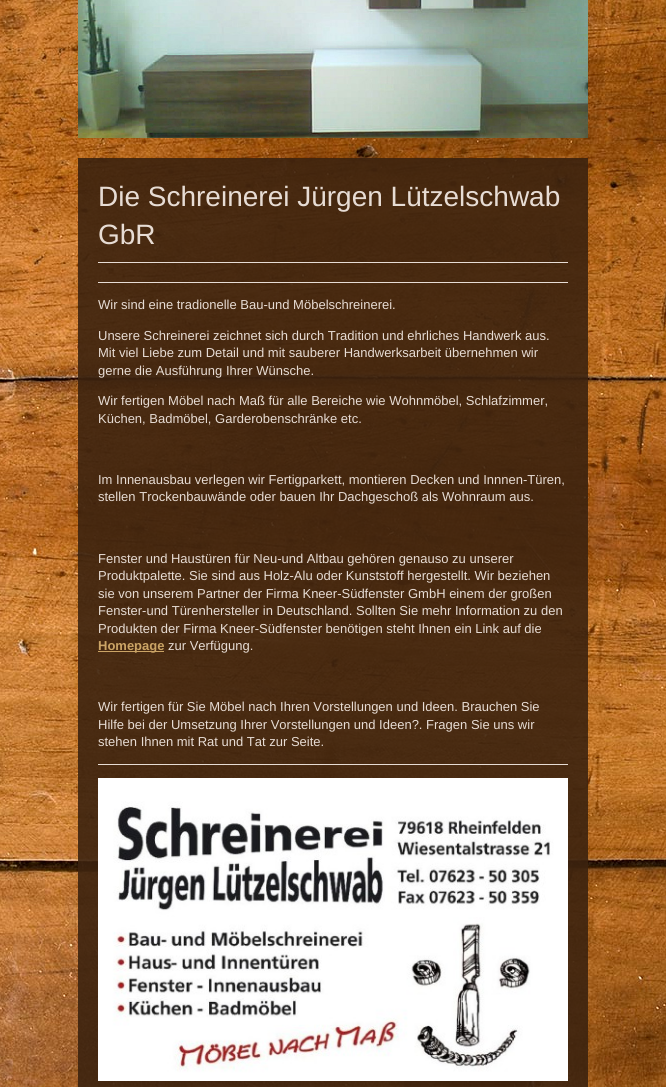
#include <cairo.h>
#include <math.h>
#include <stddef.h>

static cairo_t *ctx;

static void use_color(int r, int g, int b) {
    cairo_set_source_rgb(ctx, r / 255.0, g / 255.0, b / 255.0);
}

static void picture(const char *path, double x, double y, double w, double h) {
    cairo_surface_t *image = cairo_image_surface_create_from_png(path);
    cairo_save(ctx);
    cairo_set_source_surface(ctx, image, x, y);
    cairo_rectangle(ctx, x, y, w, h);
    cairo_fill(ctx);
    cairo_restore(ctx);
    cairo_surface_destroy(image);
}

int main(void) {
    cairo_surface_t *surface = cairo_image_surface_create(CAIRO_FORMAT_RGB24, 666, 1087);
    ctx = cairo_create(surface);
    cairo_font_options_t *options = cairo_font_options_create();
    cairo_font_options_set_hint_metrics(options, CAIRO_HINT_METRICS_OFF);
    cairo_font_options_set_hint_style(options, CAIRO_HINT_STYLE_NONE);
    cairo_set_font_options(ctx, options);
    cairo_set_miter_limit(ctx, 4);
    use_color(255, 255, 255);
    cairo_paint(ctx);
    picture("img1.png", 0, 0, 666, 1087);
    picture("img2.png", 78, 0, 510, 138);
    cairo_set_source_rgba(ctx, 0.235, 0.137, 0.059, 0.9);
    cairo_rectangle(ctx, 78, 158, 510, 929);
    cairo_fill(ctx);
    use_color(231, 220, 212);
    cairo_rectangle(ctx, 98, 262, 470, 1);
    cairo_fill(ctx);
    cairo_select_font_face(ctx, "Liberation Sans", CAIRO_FONT_SLANT_NORMAL, CAIRO_FONT_WEIGHT_NORMAL);
    cairo_set_font_size(ctx, 28);
    cairo_move_to(ctx, 98, 206);
    cairo_show_text(ctx, "Die Schreinerei Jürgen Lützelschwab");
    cairo_move_to(ctx, 98, 244);
    cairo_show_text(ctx, "GbR");
    cairo_rectangle(ctx, 98, 282, 470, 1);
    cairo_fill(ctx);
    cairo_set_font_size(ctx, 13);
    cairo_move_to(ctx, 98, 309);
    cairo_show_text(ctx, "Wir sind eine tradionelle Bau-und Möbelschreinerei.");
    cairo_move_to(ctx, 98, 340);
    cairo_show_text(ctx, "Unsere Schreinerei zeichnet sich durch Tradition und ehrliches Handwerk aus.");
    cairo_move_to(ctx, 98, 357);
    cairo_show_text(ctx, "Mit viel Liebe zum Detail und mit sauberer Handwerksarbeit übernehmen wir");
    cairo_move_to(ctx, 98, 375);
    cairo_show_text(ctx, "gerne die Ausführung Ihrer Wünsche.");
    cairo_move_to(ctx, 98, 405);
    cairo_show_text(ctx, "Wir fertigen Möbel nach Maß für alle Bereiche wie Wohnmöbel, Schlafzimmer,");
    cairo_move_to(ctx, 98, 423);
    cairo_show_text(ctx, "Küchen, Badmöbel, Garderobenschränke etc.");
    cairo_move_to(ctx, 98, 484);
    cairo_show_text(ctx, "Im Innenausbau verlegen wir Fertigparkett, montieren Decken und Innnen-Türen,");
    cairo_move_to(ctx, 98, 501);
    cairo_show_text(ctx, "stellen Trockenbauwände oder bauen Ihr Dachgeschoß als Wohnraum aus.");
    cairo_move_to(ctx, 98, 563);
    cairo_show_text(ctx, "Fenster und Haustüren für Neu-und Altbau gehören genauso zu unserer");
    cairo_move_to(ctx, 98, 580);
    cairo_show_text(ctx, "Produktpalette. Sie sind aus Holz-Alu oder Kunststoff hergestellt. Wir beziehen");
    cairo_move_to(ctx, 98, 598);
    cairo_show_text(ctx, "sie von unserem Partner der Firma Kneer-Südfenster GmbH einem der großen");
    cairo_move_to(ctx, 98, 615);
    cairo_show_text(ctx, "Fenster-und Türenhersteller in Deutschland. Sollten Sie mehr Information zu den");
    cairo_move_to(ctx, 98, 633);
    cairo_show_text(ctx, "Produkten der Firma Kneer-Südfenster benötigen steht Ihnen ein Link auf die");
    use_color(203, 164, 101);
    cairo_rectangle(ctx, 98, 651, 66, 1);
    cairo_fill(ctx);
    cairo_select_font_face(ctx, "Liberation Sans", CAIRO_FONT_SLANT_NORMAL, CAIRO_FONT_WEIGHT_BOLD);
    cairo_move_to(ctx, 98, 650);
    cairo_show_text(ctx, "Homepage");
    cairo_select_font_face(ctx, "Liberation Sans", CAIRO_FONT_SLANT_NORMAL, CAIRO_FONT_WEIGHT_NORMAL);
    use_color(231, 220, 212);
    cairo_move_to(ctx, 168, 650);
    cairo_show_text(ctx, "zur Verfügung.");
    cairo_move_to(ctx, 98, 711);
    cairo_show_text(ctx, "Wir fertigen für Sie Möbel nach Ihren Vorstellungen und Ideen. Brauchen Sie");
    cairo_move_to(ctx, 98, 729);
    cairo_show_text(ctx, "Hilfe bei der Umsetzung Ihrer Vorstellungen und Ideen?. Fragen Sie uns wir");
    cairo_move_to(ctx, 98, 746);
    cairo_show_text(ctx, "stehen Ihnen mit Rat und Tat zur Seite.");
    cairo_rectangle(ctx, 98, 764, 470, 1);
    cairo_fill(ctx);
    picture("img3.png", 98, 778, 470, 303);
    cairo_surface_write_to_png(surface, "result.png");
    cairo_font_options_destroy(options);
    cairo_destroy(ctx);
    cairo_surface_destroy(surface);
    return 0;
}
